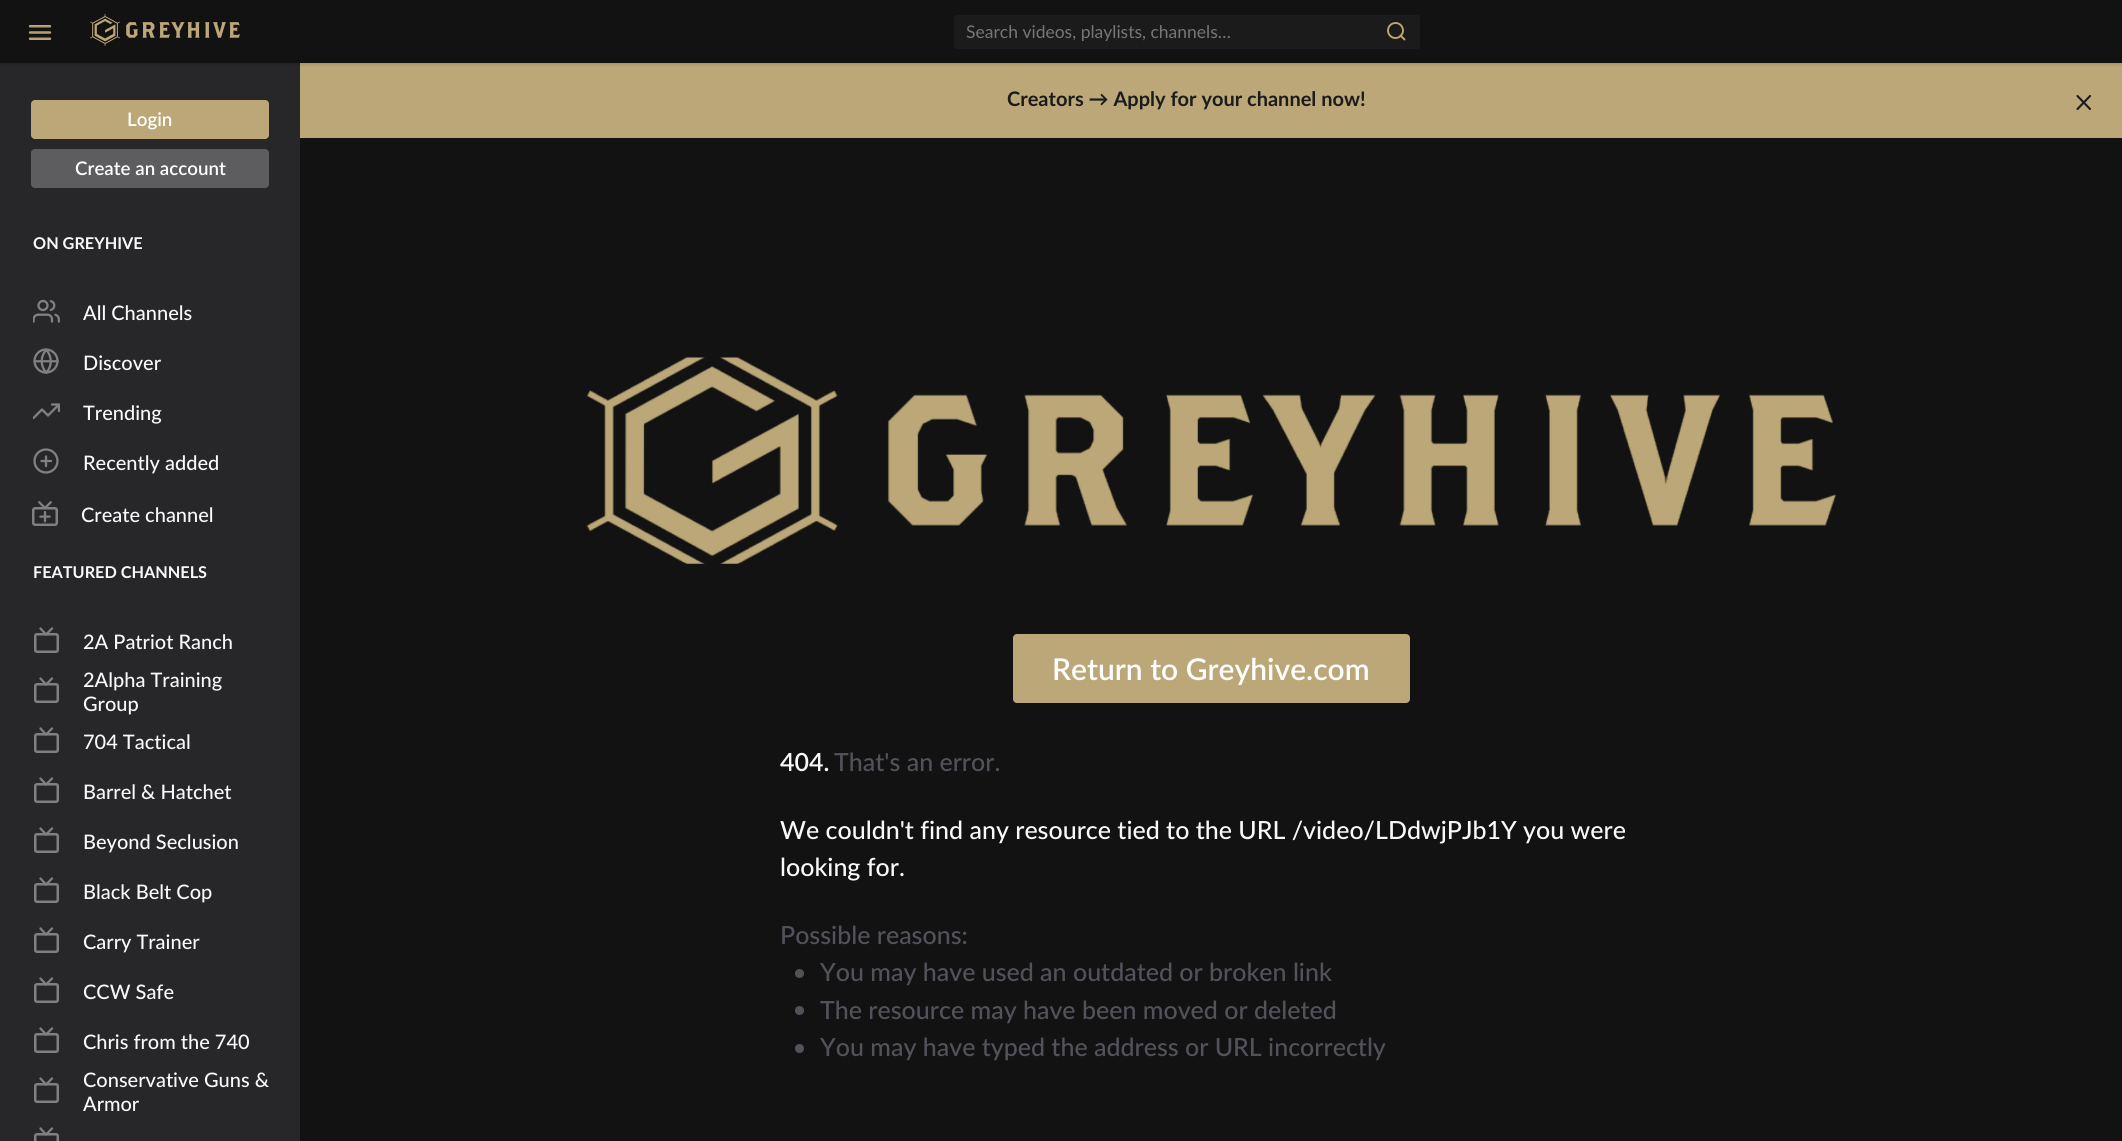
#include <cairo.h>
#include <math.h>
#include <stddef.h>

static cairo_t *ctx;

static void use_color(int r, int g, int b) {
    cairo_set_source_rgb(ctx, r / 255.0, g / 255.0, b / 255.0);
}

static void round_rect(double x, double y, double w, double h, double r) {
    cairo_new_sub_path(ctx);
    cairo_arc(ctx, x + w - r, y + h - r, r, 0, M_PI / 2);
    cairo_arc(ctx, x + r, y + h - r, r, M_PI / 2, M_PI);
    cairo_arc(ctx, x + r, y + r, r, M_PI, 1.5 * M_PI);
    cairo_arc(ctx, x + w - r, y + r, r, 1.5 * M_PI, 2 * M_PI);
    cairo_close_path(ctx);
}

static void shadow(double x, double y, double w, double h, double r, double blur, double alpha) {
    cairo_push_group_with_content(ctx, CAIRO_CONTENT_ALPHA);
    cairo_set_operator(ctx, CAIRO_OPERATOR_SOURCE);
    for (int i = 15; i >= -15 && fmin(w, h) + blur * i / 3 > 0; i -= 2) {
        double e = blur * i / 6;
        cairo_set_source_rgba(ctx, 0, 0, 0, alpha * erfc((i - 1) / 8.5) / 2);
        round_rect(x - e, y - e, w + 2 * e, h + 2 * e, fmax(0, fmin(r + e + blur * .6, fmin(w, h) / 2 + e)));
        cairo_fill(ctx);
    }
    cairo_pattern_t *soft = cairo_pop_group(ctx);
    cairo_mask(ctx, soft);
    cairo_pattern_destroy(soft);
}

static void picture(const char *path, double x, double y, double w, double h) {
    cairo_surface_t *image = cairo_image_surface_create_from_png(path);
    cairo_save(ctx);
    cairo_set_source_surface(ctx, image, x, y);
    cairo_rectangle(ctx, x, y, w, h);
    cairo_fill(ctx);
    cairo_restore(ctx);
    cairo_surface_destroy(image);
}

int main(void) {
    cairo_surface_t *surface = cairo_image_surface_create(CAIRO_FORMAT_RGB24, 2122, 1141);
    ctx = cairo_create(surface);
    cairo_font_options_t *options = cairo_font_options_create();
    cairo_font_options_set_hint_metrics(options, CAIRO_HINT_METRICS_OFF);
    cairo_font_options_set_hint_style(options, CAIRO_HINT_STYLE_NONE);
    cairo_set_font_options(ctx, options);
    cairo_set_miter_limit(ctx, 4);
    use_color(18, 18, 18);
    cairo_paint(ctx);
    use_color(39, 39, 42);
    cairo_rectangle(ctx, 0, 63, 300, 1078);
    cairo_fill(ctx);
    use_color(187, 167, 119);
    cairo_rectangle(ctx, 300, 63, 1822, 75);
    cairo_fill(ctx);
    cairo_save(ctx);
    cairo_set_fill_rule(ctx, CAIRO_FILL_RULE_EVEN_ODD);
    cairo_new_path(ctx);
    cairo_move_to(ctx, 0, 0);
    cairo_line_to(ctx, 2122, 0);
    cairo_line_to(ctx, 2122, 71);
    cairo_line_to(ctx, 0, 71);
    cairo_close_path(ctx);
    cairo_move_to(ctx, 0, 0);
    cairo_line_to(ctx, 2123, 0);
    cairo_line_to(ctx, 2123, 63);
    cairo_line_to(ctx, 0, 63);
    cairo_close_path(ctx);
    cairo_clip(ctx);
    use_color(0, 0, 0);
    shadow(0, 1, 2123, 63, 0, 2, 0.16);
    cairo_restore(ctx);
    picture("img1.png", 28, 25, 24, 15);
    picture("img2.png", 90, 14, 150, 32);
    use_color(27, 27, 27);
    round_rect(953.5, 14.5, 467, 35, 3.5);
    cairo_fill_preserve(ctx);
    use_color(18, 18, 18);
    cairo_set_line_width(ctx, 1);
    cairo_stroke(ctx);
    cairo_select_font_face(ctx, "Lato", CAIRO_FONT_SLANT_NORMAL, CAIRO_FONT_WEIGHT_NORMAL);
    cairo_set_font_size(ctx, 17.5);
    use_color(121, 118, 118);
    cairo_move_to(ctx, 966, 38);
    cairo_show_text(ctx, "Search videos, playlists, channels…");
    cairo_new_path(ctx);
    cairo_arc(ctx, 1395.5, 30.5, 7.5, 0, 2 * M_PI);
    use_color(187, 167, 119);
    cairo_set_line_width(ctx, 1.9);
    cairo_stroke(ctx);
    cairo_new_path(ctx);
    cairo_move_to(ctx, 1404.5, 39.5);
    cairo_line_to(ctx, 1400.5, 35.5);
    cairo_set_line_cap(ctx, CAIRO_LINE_CAP_ROUND);
    cairo_set_line_join(ctx, CAIRO_LINE_JOIN_ROUND);
    cairo_stroke(ctx);
    round_rect(31, 100, 238, 39, 4);
    cairo_fill(ctx);
    cairo_select_font_face(ctx, "Lato SemiBold", CAIRO_FONT_SLANT_NORMAL, CAIRO_FONT_WEIGHT_NORMAL);
    cairo_set_font_size(ctx, 18.75);
    use_color(255, 255, 255);
    cairo_move_to(ctx, 127, 126);
    cairo_show_text(ctx, "Login");
    use_color(93, 93, 95);
    round_rect(31, 149, 238, 39, 4);
    cairo_fill(ctx);
    use_color(255, 255, 255);
    cairo_move_to(ctx, 75, 175);
    cairo_show_text(ctx, "Create an account");
    cairo_select_font_face(ctx, "Lato", CAIRO_FONT_SLANT_NORMAL, CAIRO_FONT_WEIGHT_BOLD);
    cairo_set_font_size(ctx, 16.25);
    use_color(249, 249, 249);
    cairo_move_to(ctx, 33, 249);
    cairo_show_text(ctx, "ON GREYHIVE");
    picture("img3.png", 33, 299, 27, 24);
    cairo_select_font_face(ctx, "Lato Medium", CAIRO_FONT_SLANT_NORMAL, CAIRO_FONT_WEIGHT_NORMAL);
    cairo_set_font_size(ctx, 20);
    cairo_move_to(ctx, 83, 320);
    cairo_show_text(ctx, "All Channels");
    picture("img4.png", 33, 348, 26, 26);
    cairo_move_to(ctx, 83, 370);
    cairo_show_text(ctx, "Discover");
    cairo_save(ctx);
    cairo_rectangle(ctx, 33, 398, 27, 27);
    cairo_clip(ctx);
    cairo_new_path(ctx);
    cairo_move_to(ctx, 59, 404.5);
    cairo_line_to(ctx, 48, 415.5);
    cairo_line_to(ctx, 42, 409.5);
    cairo_line_to(ctx, 33.5, 418);
    cairo_move_to(ctx, 52, 404.5);
    cairo_line_to(ctx, 59, 404.5);
    cairo_line_to(ctx, 59, 411);
    use_color(128, 128, 128);
    cairo_set_line_width(ctx, 2.3);
    cairo_stroke(ctx);
    cairo_restore(ctx);
    cairo_move_to(ctx, 83, 420);
    cairo_show_text(ctx, "Trending");
    cairo_new_path(ctx);
    cairo_arc(ctx, 46, 461, 11.5, 0, 2 * M_PI);
    use_color(128, 128, 128);
    cairo_set_line_width(ctx, 2.3);
    cairo_set_line_cap(ctx, CAIRO_LINE_CAP_BUTT);
    cairo_set_line_join(ctx, CAIRO_LINE_JOIN_MITER);
    cairo_stroke(ctx);
    cairo_new_path(ctx);
    cairo_move_to(ctx, 46, 456.5);
    cairo_line_to(ctx, 46, 466);
    cairo_move_to(ctx, 41.5, 461);
    cairo_line_to(ctx, 51, 461);
    cairo_set_line_cap(ctx, CAIRO_LINE_CAP_ROUND);
    cairo_set_line_join(ctx, CAIRO_LINE_JOIN_ROUND);
    cairo_stroke(ctx);
    use_color(249, 249, 249);
    cairo_move_to(ctx, 83, 470);
    cairo_show_text(ctx, "Recently added");
    picture("img5.png", 32, 501, 26, 25);
    cairo_move_to(ctx, 81, 522);
    cairo_show_text(ctx, "Create channel");
    cairo_select_font_face(ctx, "Lato", CAIRO_FONT_SLANT_NORMAL, CAIRO_FONT_WEIGHT_BOLD);
    cairo_set_font_size(ctx, 16.25);
    cairo_move_to(ctx, 33, 578);
    cairo_show_text(ctx, "FEATURED CHANNELS");
    round_rect(35.25, 634.25, 22.5, 17.5, 1.75);
    use_color(128, 128, 128);
    cairo_set_line_width(ctx, 2.5);
    cairo_set_line_cap(ctx, CAIRO_LINE_CAP_BUTT);
    cairo_set_line_join(ctx, CAIRO_LINE_JOIN_MITER);
    cairo_stroke(ctx);
    cairo_new_path(ctx);
    cairo_move_to(ctx, 52, 628.5);
    cairo_line_to(ctx, 46, 634.5);
    cairo_line_to(ctx, 40.5, 628.5);
    cairo_set_line_width(ctx, 2.3);
    cairo_set_line_cap(ctx, CAIRO_LINE_CAP_ROUND);
    cairo_set_line_join(ctx, CAIRO_LINE_JOIN_ROUND);
    cairo_stroke(ctx);
    cairo_select_font_face(ctx, "Lato Medium", CAIRO_FONT_SLANT_NORMAL, CAIRO_FONT_WEIGHT_NORMAL);
    cairo_set_font_size(ctx, 20);
    use_color(249, 249, 249);
    cairo_move_to(ctx, 83, 649);
    cairo_show_text(ctx, "2A Patriot Ranch");
    round_rect(35.25, 684.25, 22.5, 17.5, 1.75);
    use_color(128, 128, 128);
    cairo_set_line_width(ctx, 2.5);
    cairo_set_line_cap(ctx, CAIRO_LINE_CAP_BUTT);
    cairo_set_line_join(ctx, CAIRO_LINE_JOIN_MITER);
    cairo_stroke(ctx);
    cairo_new_path(ctx);
    cairo_move_to(ctx, 52, 678.5);
    cairo_line_to(ctx, 46, 684.5);
    cairo_line_to(ctx, 40.5, 678.5);
    cairo_set_line_width(ctx, 2.3);
    cairo_set_line_cap(ctx, CAIRO_LINE_CAP_ROUND);
    cairo_set_line_join(ctx, CAIRO_LINE_JOIN_ROUND);
    cairo_stroke(ctx);
    use_color(249, 249, 249);
    cairo_move_to(ctx, 83, 687);
    cairo_show_text(ctx, "2Alpha Training");
    cairo_move_to(ctx, 83, 711);
    cairo_show_text(ctx, "Group");
    round_rect(35.25, 734.25, 22.5, 17.5, 1.75);
    use_color(128, 128, 128);
    cairo_set_line_width(ctx, 2.5);
    cairo_set_line_cap(ctx, CAIRO_LINE_CAP_BUTT);
    cairo_set_line_join(ctx, CAIRO_LINE_JOIN_MITER);
    cairo_stroke(ctx);
    cairo_new_path(ctx);
    cairo_move_to(ctx, 52, 728.5);
    cairo_line_to(ctx, 46, 734.5);
    cairo_line_to(ctx, 40.5, 728.5);
    cairo_set_line_width(ctx, 2.3);
    cairo_set_line_cap(ctx, CAIRO_LINE_CAP_ROUND);
    cairo_set_line_join(ctx, CAIRO_LINE_JOIN_ROUND);
    cairo_stroke(ctx);
    use_color(249, 249, 249);
    cairo_move_to(ctx, 83, 749);
    cairo_show_text(ctx, "704 Tactical");
    round_rect(35.25, 784.25, 22.5, 17.5, 1.75);
    use_color(128, 128, 128);
    cairo_set_line_width(ctx, 2.5);
    cairo_set_line_cap(ctx, CAIRO_LINE_CAP_BUTT);
    cairo_set_line_join(ctx, CAIRO_LINE_JOIN_MITER);
    cairo_stroke(ctx);
    cairo_new_path(ctx);
    cairo_move_to(ctx, 52, 778.5);
    cairo_line_to(ctx, 46, 784.5);
    cairo_line_to(ctx, 40.5, 778.5);
    cairo_set_line_width(ctx, 2.3);
    cairo_set_line_cap(ctx, CAIRO_LINE_CAP_ROUND);
    cairo_set_line_join(ctx, CAIRO_LINE_JOIN_ROUND);
    cairo_stroke(ctx);
    use_color(249, 249, 249);
    cairo_move_to(ctx, 83, 799);
    cairo_show_text(ctx, "Barrel & Hatchet");
    round_rect(35.25, 834.25, 22.5, 17.5, 1.75);
    use_color(128, 128, 128);
    cairo_set_line_width(ctx, 2.5);
    cairo_set_line_cap(ctx, CAIRO_LINE_CAP_BUTT);
    cairo_set_line_join(ctx, CAIRO_LINE_JOIN_MITER);
    cairo_stroke(ctx);
    cairo_new_path(ctx);
    cairo_move_to(ctx, 52, 828.5);
    cairo_line_to(ctx, 46, 834.5);
    cairo_line_to(ctx, 40.5, 828.5);
    cairo_set_line_width(ctx, 2.3);
    cairo_set_line_cap(ctx, CAIRO_LINE_CAP_ROUND);
    cairo_set_line_join(ctx, CAIRO_LINE_JOIN_ROUND);
    cairo_stroke(ctx);
    use_color(249, 249, 249);
    cairo_move_to(ctx, 83, 849);
    cairo_show_text(ctx, "Beyond Seclusion");
    round_rect(35.25, 884.25, 22.5, 17.5, 1.75);
    use_color(128, 128, 128);
    cairo_set_line_width(ctx, 2.5);
    cairo_set_line_cap(ctx, CAIRO_LINE_CAP_BUTT);
    cairo_set_line_join(ctx, CAIRO_LINE_JOIN_MITER);
    cairo_stroke(ctx);
    cairo_new_path(ctx);
    cairo_move_to(ctx, 52, 878.5);
    cairo_line_to(ctx, 46, 884.5);
    cairo_line_to(ctx, 40.5, 878.5);
    cairo_set_line_width(ctx, 2.3);
    cairo_set_line_cap(ctx, CAIRO_LINE_CAP_ROUND);
    cairo_set_line_join(ctx, CAIRO_LINE_JOIN_ROUND);
    cairo_stroke(ctx);
    use_color(249, 249, 249);
    cairo_move_to(ctx, 83, 899);
    cairo_show_text(ctx, "Black Belt Cop");
    round_rect(35.25, 934.25, 22.5, 17.5, 1.75);
    use_color(128, 128, 128);
    cairo_set_line_width(ctx, 2.5);
    cairo_set_line_cap(ctx, CAIRO_LINE_CAP_BUTT);
    cairo_set_line_join(ctx, CAIRO_LINE_JOIN_MITER);
    cairo_stroke(ctx);
    cairo_new_path(ctx);
    cairo_move_to(ctx, 52, 928.5);
    cairo_line_to(ctx, 46, 934.5);
    cairo_line_to(ctx, 40.5, 928.5);
    cairo_set_line_width(ctx, 2.3);
    cairo_set_line_cap(ctx, CAIRO_LINE_CAP_ROUND);
    cairo_set_line_join(ctx, CAIRO_LINE_JOIN_ROUND);
    cairo_stroke(ctx);
    use_color(249, 249, 249);
    cairo_move_to(ctx, 83, 949);
    cairo_show_text(ctx, "Carry Trainer");
    round_rect(35.25, 984.25, 22.5, 17.5, 1.75);
    use_color(128, 128, 128);
    cairo_set_line_width(ctx, 2.5);
    cairo_set_line_cap(ctx, CAIRO_LINE_CAP_BUTT);
    cairo_set_line_join(ctx, CAIRO_LINE_JOIN_MITER);
    cairo_stroke(ctx);
    cairo_new_path(ctx);
    cairo_move_to(ctx, 52, 978.5);
    cairo_line_to(ctx, 46, 984.5);
    cairo_line_to(ctx, 40.5, 978.5);
    cairo_set_line_width(ctx, 2.3);
    cairo_set_line_cap(ctx, CAIRO_LINE_CAP_ROUND);
    cairo_set_line_join(ctx, CAIRO_LINE_JOIN_ROUND);
    cairo_stroke(ctx);
    use_color(249, 249, 249);
    cairo_move_to(ctx, 83, 999);
    cairo_show_text(ctx, "CCW Safe");
    round_rect(35.25, 1034.25, 22.5, 17.5, 1.75);
    use_color(128, 128, 128);
    cairo_set_line_width(ctx, 2.5);
    cairo_set_line_cap(ctx, CAIRO_LINE_CAP_BUTT);
    cairo_set_line_join(ctx, CAIRO_LINE_JOIN_MITER);
    cairo_stroke(ctx);
    cairo_new_path(ctx);
    cairo_move_to(ctx, 52, 1028.5);
    cairo_line_to(ctx, 46, 1034.5);
    cairo_line_to(ctx, 40.5, 1028.5);
    cairo_set_line_width(ctx, 2.3);
    cairo_set_line_cap(ctx, CAIRO_LINE_CAP_ROUND);
    cairo_set_line_join(ctx, CAIRO_LINE_JOIN_ROUND);
    cairo_stroke(ctx);
    use_color(249, 249, 249);
    cairo_move_to(ctx, 83, 1049);
    cairo_show_text(ctx, "Chris from the 740");
    round_rect(35.25, 1084.25, 22.5, 17.5, 1.75);
    use_color(128, 128, 128);
    cairo_set_line_width(ctx, 2.5);
    cairo_set_line_cap(ctx, CAIRO_LINE_CAP_BUTT);
    cairo_set_line_join(ctx, CAIRO_LINE_JOIN_MITER);
    cairo_stroke(ctx);
    cairo_new_path(ctx);
    cairo_move_to(ctx, 52, 1078.5);
    cairo_line_to(ctx, 46, 1084.5);
    cairo_line_to(ctx, 40.5, 1078.5);
    cairo_set_line_width(ctx, 2.3);
    cairo_set_line_cap(ctx, CAIRO_LINE_CAP_ROUND);
    cairo_set_line_join(ctx, CAIRO_LINE_JOIN_ROUND);
    cairo_stroke(ctx);
    use_color(249, 249, 249);
    cairo_move_to(ctx, 83, 1087);
    cairo_show_text(ctx, "Conservative Guns &");
    cairo_move_to(ctx, 83, 1111);
    cairo_show_text(ctx, "Armor");
    round_rect(35.25, 1134.25, 22.5, 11.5, 1.75);
    use_color(128, 128, 128);
    cairo_set_line_width(ctx, 2.5);
    cairo_set_line_cap(ctx, CAIRO_LINE_CAP_BUTT);
    cairo_set_line_join(ctx, CAIRO_LINE_JOIN_MITER);
    cairo_stroke(ctx);
    cairo_new_path(ctx);
    cairo_move_to(ctx, 52, 1128.5);
    cairo_line_to(ctx, 46, 1134.5);
    cairo_line_to(ctx, 40.5, 1128.5);
    cairo_set_line_width(ctx, 2.3);
    cairo_set_line_cap(ctx, CAIRO_LINE_CAP_ROUND);
    cairo_set_line_join(ctx, CAIRO_LINE_JOIN_ROUND);
    cairo_stroke(ctx);
    cairo_select_font_face(ctx, "Lato", CAIRO_FONT_SLANT_NORMAL, CAIRO_FONT_WEIGHT_BOLD);
    use_color(27, 27, 27);
    cairo_move_to(ctx, 1007, 106);
    cairo_show_text(ctx, "Creators → Apply for your channel now!");
    cairo_new_path(ctx);
    cairo_move_to(ctx, 2090, 96);
    cairo_line_to(ctx, 2077.5, 109);
    cairo_move_to(ctx, 2077.5, 96);
    cairo_line_to(ctx, 2090, 109);
    cairo_set_line_width(ctx, 2.1);
    cairo_stroke(ctx);
    picture("img6.png", 586, 357, 1251, 207);
    use_color(187, 167, 119);
    round_rect(1013, 634, 397, 69, 4);
    cairo_fill(ctx);
    cairo_select_font_face(ctx, "Lato SemiBold", CAIRO_FONT_SLANT_NORMAL, CAIRO_FONT_WEIGHT_NORMAL);
    cairo_set_font_size(ctx, 30);
    use_color(255, 255, 255);
    cairo_move_to(ctx, 1052, 680);
    cairo_show_text(ctx, "Return to Greyhive.com");
    cairo_set_font_size(ctx, 25);
    use_color(249, 249, 249);
    cairo_move_to(ctx, 780, 771);
    cairo_show_text(ctx, "404.");
    cairo_select_font_face(ctx, "Lato Medium", CAIRO_FONT_SLANT_NORMAL, CAIRO_FONT_WEIGHT_NORMAL);
    use_color(82, 82, 91);
    cairo_move_to(ctx, 834, 771);
    cairo_show_text(ctx, "That's an error.");
    use_color(249, 249, 249);
    cairo_move_to(ctx, 780, 839);
    cairo_show_text(ctx, "We couldn't find any resource tied to the URL /video/LDdwjPJb1Y you were");
    cairo_move_to(ctx, 780, 876);
    cairo_show_text(ctx, "looking for.");
    use_color(82, 82, 91);
    cairo_move_to(ctx, 780, 944);
    cairo_show_text(ctx, "Possible reasons:");
    cairo_new_path(ctx);
    cairo_arc(ctx, 799.5, 973.5, 4.5, 0, 2 * M_PI);
    cairo_fill(ctx);
    cairo_move_to(ctx, 820, 981);
    cairo_show_text(ctx, "You may have used an outdated or broken link");
    cairo_new_path(ctx);
    cairo_arc(ctx, 799.5, 1010.5, 4.5, 0, 2 * M_PI);
    cairo_fill(ctx);
    cairo_move_to(ctx, 820, 1019);
    cairo_show_text(ctx, "The resource may have been moved or deleted");
    cairo_new_path(ctx);
    cairo_arc(ctx, 799.5, 1048.5, 4.5, 0, 2 * M_PI);
    cairo_fill(ctx);
    cairo_move_to(ctx, 820, 1056);
    cairo_show_text(ctx, "You may have typed the address or URL incorrectly");
    cairo_surface_write_to_png(surface, "result.png");
    cairo_font_options_destroy(options);
    cairo_destroy(ctx);
    cairo_surface_destroy(surface);
    return 0;
}
